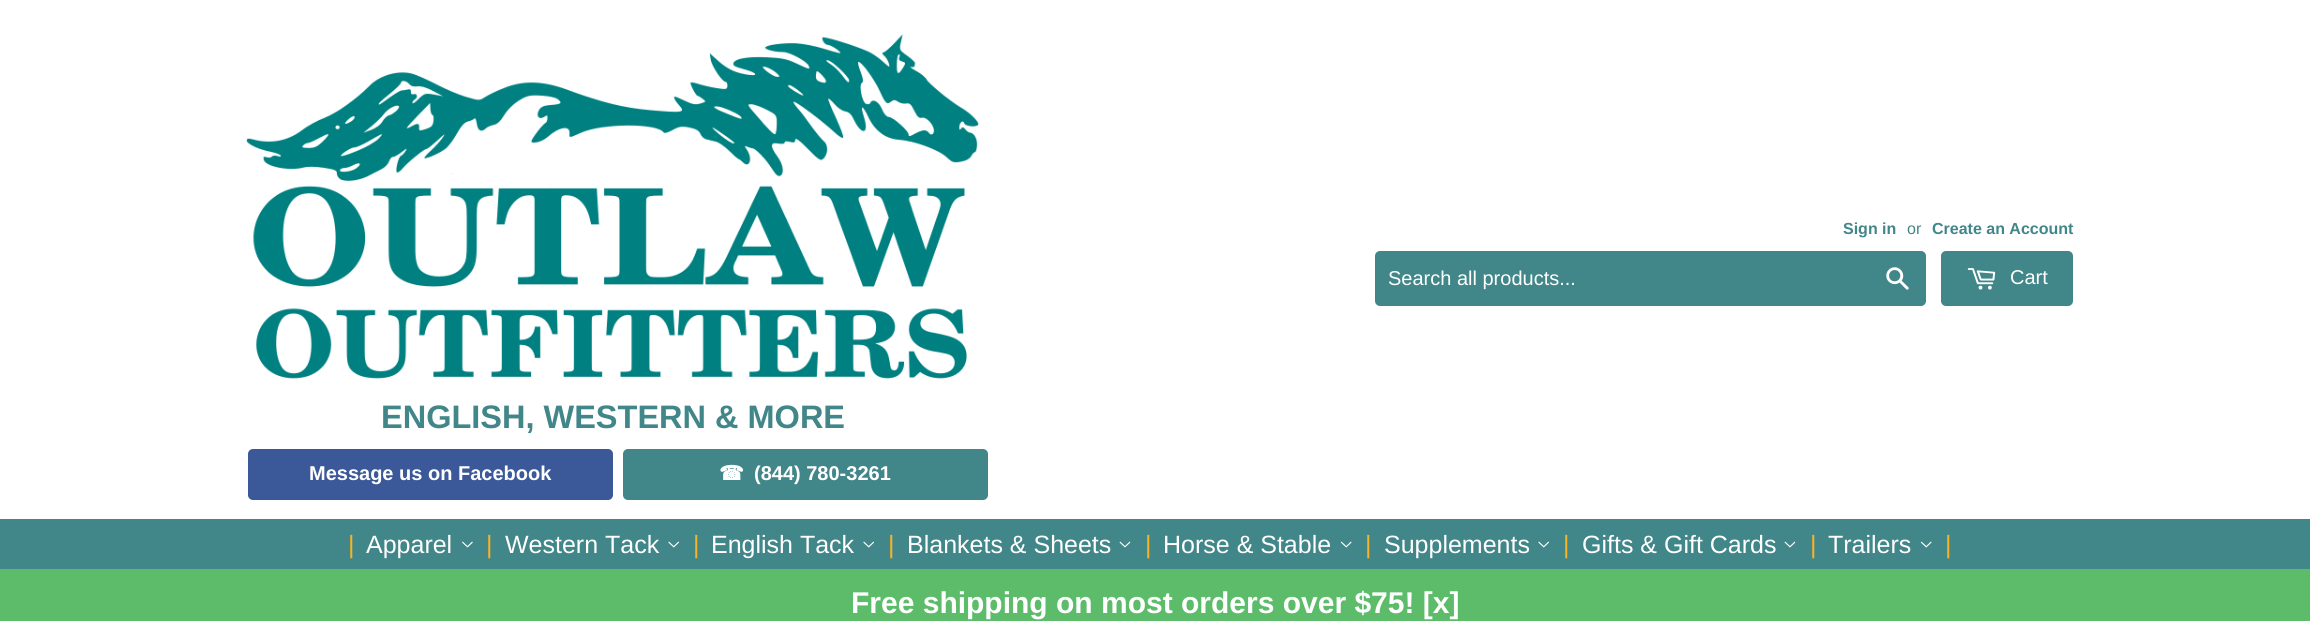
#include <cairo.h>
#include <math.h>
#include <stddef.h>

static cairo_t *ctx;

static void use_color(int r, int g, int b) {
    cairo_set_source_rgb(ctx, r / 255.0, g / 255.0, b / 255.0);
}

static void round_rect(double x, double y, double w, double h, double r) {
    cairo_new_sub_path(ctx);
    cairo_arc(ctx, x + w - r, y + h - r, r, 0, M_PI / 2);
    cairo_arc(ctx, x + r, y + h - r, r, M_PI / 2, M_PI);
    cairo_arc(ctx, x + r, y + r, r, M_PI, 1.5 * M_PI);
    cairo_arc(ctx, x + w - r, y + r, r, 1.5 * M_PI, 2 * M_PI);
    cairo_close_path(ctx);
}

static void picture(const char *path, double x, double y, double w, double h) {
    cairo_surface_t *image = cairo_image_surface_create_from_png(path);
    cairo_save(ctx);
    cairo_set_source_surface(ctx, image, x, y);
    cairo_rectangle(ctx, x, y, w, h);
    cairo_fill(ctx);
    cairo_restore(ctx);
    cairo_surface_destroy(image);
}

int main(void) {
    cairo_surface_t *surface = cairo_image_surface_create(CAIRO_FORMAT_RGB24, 2310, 621);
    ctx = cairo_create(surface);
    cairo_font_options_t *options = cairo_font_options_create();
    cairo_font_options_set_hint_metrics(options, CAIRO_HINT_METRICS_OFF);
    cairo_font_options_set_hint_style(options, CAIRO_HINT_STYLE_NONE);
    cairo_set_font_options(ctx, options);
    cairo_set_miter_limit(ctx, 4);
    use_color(255, 255, 255);
    cairo_paint(ctx);
    cairo_select_font_face(ctx, "Liberation Sans", CAIRO_FONT_SLANT_NORMAL, CAIRO_FONT_WEIGHT_BOLD);
    cairo_set_font_size(ctx, 16);
    use_color(65, 134, 137);
    cairo_move_to(ctx, 1843, 234);
    cairo_show_text(ctx, "Sign in");
    cairo_select_font_face(ctx, "Liberation Sans", CAIRO_FONT_SLANT_NORMAL, CAIRO_FONT_WEIGHT_NORMAL);
    cairo_move_to(ctx, 1907, 234);
    cairo_show_text(ctx, "or");
    cairo_select_font_face(ctx, "Liberation Sans", CAIRO_FONT_SLANT_NORMAL, CAIRO_FONT_WEIGHT_BOLD);
    cairo_move_to(ctx, 1932, 234);
    cairo_show_text(ctx, "Create an Account");
    round_rect(1375, 251, 551, 55, 5);
    cairo_fill(ctx);
    cairo_select_font_face(ctx, "Liberation Sans", CAIRO_FONT_SLANT_NORMAL, CAIRO_FONT_WEIGHT_NORMAL);
    cairo_set_font_size(ctx, 20);
    use_color(255, 255, 255);
    cairo_move_to(ctx, 1388, 285);
    cairo_show_text(ctx, "Search all products...");
    picture("img1.png", 1886, 267, 23, 23);
    use_color(65, 134, 137);
    round_rect(1941, 251, 132, 55, 5);
    cairo_fill(ctx);
    picture("img2.png", 1967, 268, 29, 22);
    use_color(255, 255, 255);
    cairo_move_to(ctx, 2010, 284);
    cairo_show_text(ctx, "Cart");
    picture("img3.png", 246, 34, 733, 345);
    cairo_select_font_face(ctx, "Liberation Sans", CAIRO_FONT_SLANT_NORMAL, CAIRO_FONT_WEIGHT_BOLD);
    cairo_set_font_size(ctx, 32.5);
    use_color(65, 134, 137);
    cairo_move_to(ctx, 381, 428);
    cairo_show_text(ctx, "ENGLISH, WESTERN & MORE");
    use_color(59, 89, 152);
    round_rect(248, 449, 365, 51, 5);
    cairo_fill(ctx);
    cairo_set_font_size(ctx, 20);
    use_color(255, 255, 255);
    cairo_move_to(ctx, 309, 480);
    cairo_show_text(ctx, "Message us on Facebook");
    use_color(65, 134, 137);
    round_rect(623, 449, 365, 51, 5);
    cairo_fill(ctx);
    cairo_select_font_face(ctx, "DejaVu Sans", CAIRO_FONT_SLANT_NORMAL, CAIRO_FONT_WEIGHT_BOLD);
    use_color(255, 255, 255);
    cairo_move_to(ctx, 719, 480);
    cairo_show_text(ctx, "☎");
    cairo_select_font_face(ctx, "Liberation Sans", CAIRO_FONT_SLANT_NORMAL, CAIRO_FONT_WEIGHT_BOLD);
    cairo_move_to(ctx, 754, 480);
    cairo_show_text(ctx, "(844) 780-3261");
    use_color(65, 134, 137);
    cairo_rectangle(ctx, 0, 519, 2310, 50);
    cairo_fill(ctx);
    cairo_select_font_face(ctx, "Liberation Sans", CAIRO_FONT_SLANT_NORMAL, CAIRO_FONT_WEIGHT_NORMAL);
    cairo_set_font_size(ctx, 25);
    use_color(251, 178, 32);
    cairo_move_to(ctx, 348, 553);
    cairo_show_text(ctx, "|");
    use_color(255, 255, 255);
    cairo_move_to(ctx, 366, 553);
    cairo_show_text(ctx, "Apparel");
    picture("img4.png", 462, 541, 11, 7);
    use_color(251, 178, 32);
    cairo_move_to(ctx, 486, 553);
    cairo_show_text(ctx, "|");
    use_color(255, 255, 255);
    cairo_move_to(ctx, 505, 553);
    cairo_show_text(ctx, "Western Tack");
    picture("img5.png", 668, 541, 11, 7);
    use_color(251, 178, 32);
    cairo_move_to(ctx, 693, 553);
    cairo_show_text(ctx, "|");
    use_color(255, 255, 255);
    cairo_move_to(ctx, 711, 553);
    cairo_show_text(ctx, "English Tack");
    picture("img5.png", 863, 541, 11, 7);
    use_color(251, 178, 32);
    cairo_move_to(ctx, 888, 553);
    cairo_show_text(ctx, "|");
    use_color(255, 255, 255);
    cairo_move_to(ctx, 907, 553);
    cairo_show_text(ctx, "Blankets & Sheets");
    picture("img6.png", 1119, 541, 12, 7);
    use_color(251, 178, 32);
    cairo_move_to(ctx, 1145, 553);
    cairo_show_text(ctx, "|");
    use_color(255, 255, 255);
    cairo_move_to(ctx, 1163, 553);
    cairo_show_text(ctx, "Horse & Stable");
    picture("img7.png", 1340, 541, 12, 7);
    use_color(251, 178, 32);
    cairo_move_to(ctx, 1365, 553);
    cairo_show_text(ctx, "|");
    use_color(255, 255, 255);
    cairo_move_to(ctx, 1384, 553);
    cairo_show_text(ctx, "Supplements");
    picture("img5.png", 1538, 541, 11, 7);
    use_color(251, 178, 32);
    cairo_move_to(ctx, 1563, 553);
    cairo_show_text(ctx, "|");
    use_color(255, 255, 255);
    cairo_move_to(ctx, 1582, 553);
    cairo_show_text(ctx, "Gifts & Gift Cards");
    picture("img6.png", 1784, 541, 12, 7);
    use_color(251, 178, 32);
    cairo_move_to(ctx, 1810, 553);
    cairo_show_text(ctx, "|");
    use_color(255, 255, 255);
    cairo_move_to(ctx, 1828, 553);
    cairo_show_text(ctx, "Trailers");
    picture("img7.png", 1920, 541, 12, 7);
    use_color(251, 178, 32);
    cairo_move_to(ctx, 1945, 553);
    cairo_show_text(ctx, "|");
    use_color(92, 188, 105);
    cairo_rectangle(ctx, 0, 569, 2310, 52);
    cairo_fill(ctx);
    cairo_select_font_face(ctx, "Liberation Sans", CAIRO_FONT_SLANT_NORMAL, CAIRO_FONT_WEIGHT_BOLD);
    cairo_set_font_size(ctx, 30);
    use_color(255, 255, 255);
    cairo_move_to(ctx, 851, 613);
    cairo_show_text(ctx, "Free shipping on most orders over $75! [x]");
    cairo_surface_write_to_png(surface, "result.png");
    cairo_font_options_destroy(options);
    cairo_destroy(ctx);
    cairo_surface_destroy(surface);
    return 0;
}
